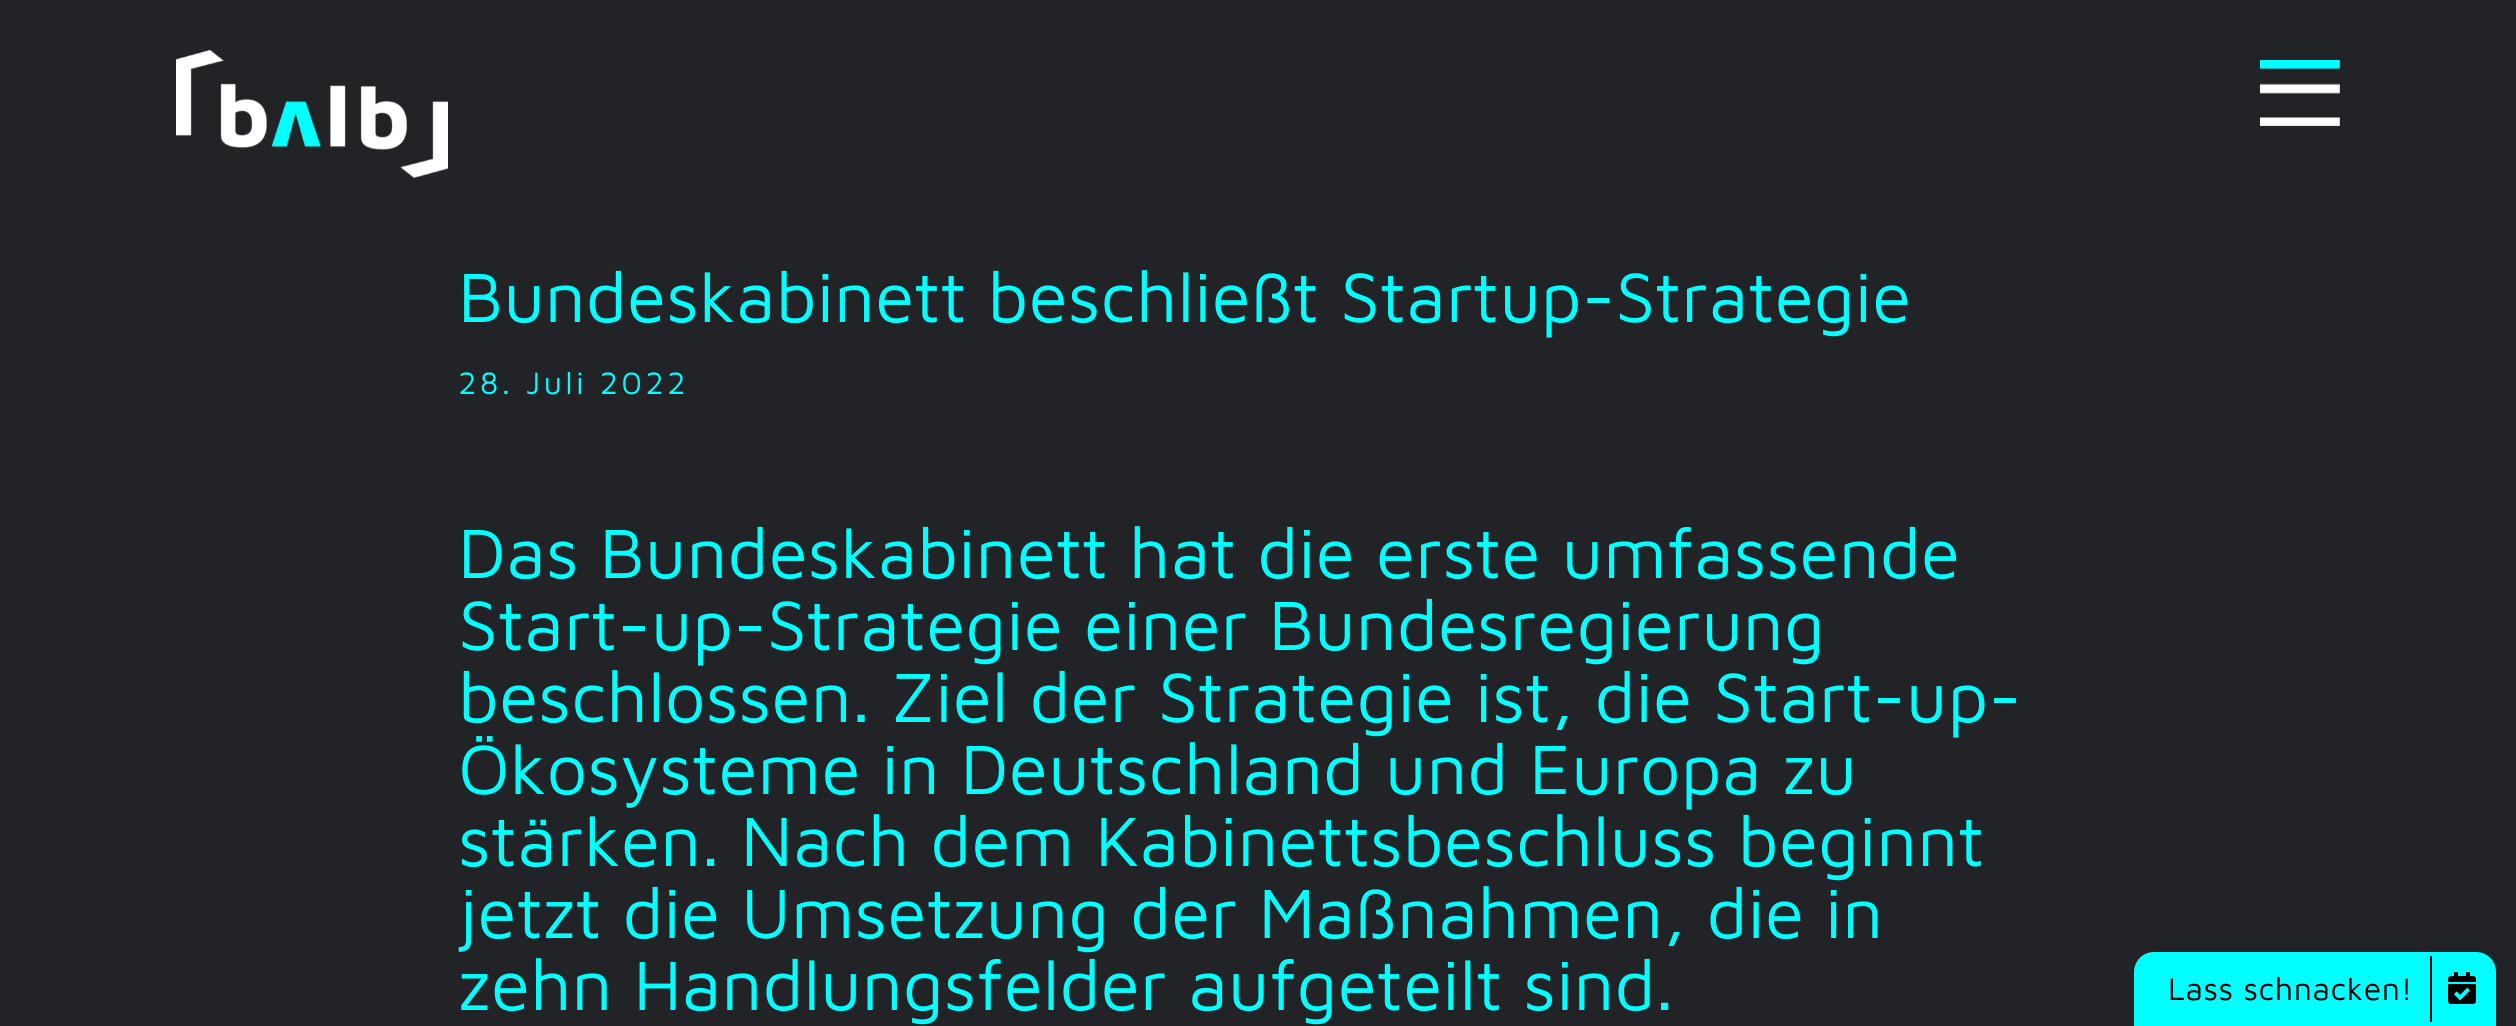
#include <cairo.h>
#include <math.h>
#include <stddef.h>

static cairo_t *ctx;

static void use_color(int r, int g, int b) {
    cairo_set_source_rgb(ctx, r / 255.0, g / 255.0, b / 255.0);
}

static void spaced_text(double x, double y, const char *s, double letter, double word) {
    cairo_move_to(ctx, x, y);
    while (*s) {
        char ch[5] = {0};
        int n = 0;
        do ch[n++] = *s++; while ((*s & 0xC0) == 0x80);
        cairo_show_text(ctx, ch);
        cairo_rel_move_to(ctx, letter + word * (*ch == ' '), 0);
    }
}

static void picture(const char *path, double x, double y, double w, double h) {
    cairo_surface_t *image = cairo_image_surface_create_from_png(path);
    cairo_save(ctx);
    cairo_set_source_surface(ctx, image, x, y);
    cairo_rectangle(ctx, x, y, w, h);
    cairo_fill(ctx);
    cairo_restore(ctx);
    cairo_surface_destroy(image);
}

int main(void) {
    cairo_surface_t *surface = cairo_image_surface_create(CAIRO_FORMAT_RGB24, 2516, 1026);
    ctx = cairo_create(surface);
    cairo_font_options_t *options = cairo_font_options_create();
    cairo_font_options_set_hint_metrics(options, CAIRO_HINT_METRICS_OFF);
    cairo_font_options_set_hint_style(options, CAIRO_HINT_STYLE_NONE);
    cairo_set_font_options(ctx, options);
    cairo_set_miter_limit(ctx, 4);
    use_color(33, 35, 38);
    cairo_paint(ctx);
    picture("img1.png", 176, 50, 272, 128);
    picture("img2.png", 2260, 60, 80, 66);
    cairo_select_font_face(ctx, "Maven Pro", CAIRO_FONT_SLANT_NORMAL, CAIRO_FONT_WEIGHT_NORMAL);
    cairo_set_font_size(ctx, 72);
    use_color(0, 255, 255);
    cairo_move_to(ctx, 458, 322);
    cairo_show_text(ctx, "Bundeskabinett beschließt Startup-Strategie");
    cairo_set_font_size(ctx, 32);
    spaced_text(458, 394, "28. Juli 2022", 3.25, 0);
    cairo_set_font_size(ctx, 72);
    cairo_move_to(ctx, 458, 578);
    cairo_show_text(ctx, "Das Bundeskabinett hat die erste umfassende");
    cairo_move_to(ctx, 458, 650);
    cairo_show_text(ctx, "Start-up-Strategie einer Bundesregierung");
    cairo_move_to(ctx, 458, 722);
    cairo_show_text(ctx, "beschlossen. Ziel der Strategie ist, die Start-up-");
    cairo_move_to(ctx, 458, 794);
    cairo_show_text(ctx, "Ökosysteme in Deutschland und Europa zu");
    cairo_move_to(ctx, 458, 866);
    cairo_show_text(ctx, "stärken. Nach dem Kabinettsbeschluss beginnt");
    cairo_move_to(ctx, 458, 938);
    cairo_show_text(ctx, "jetzt die Umsetzung der Maßnahmen, die in");
    cairo_move_to(ctx, 458, 1010);
    cairo_show_text(ctx, "zehn Handlungsfelder aufgeteilt sind.");
    cairo_new_path(ctx);
    cairo_move_to(ctx, 2154, 954);
    cairo_line_to(ctx, 2476, 954);
    cairo_curve_to(ctx, 2486, 954, 2494, 962, 2494, 972);
    cairo_line_to(ctx, 2494, 1024);
    cairo_line_to(ctx, 2136, 1024);
    cairo_line_to(ctx, 2136, 972);
    cairo_curve_to(ctx, 2136, 962, 2144, 954, 2154, 954);
    cairo_close_path(ctx);
    cairo_fill_preserve(ctx);
    cairo_set_line_width(ctx, 4);
    cairo_stroke(ctx);
    cairo_set_font_size(ctx, 32);
    use_color(0, 0, 0);
    spaced_text(2168, 1000, "Lass schnacken!", 0.5, 0);
    cairo_rectangle(ctx, 2430, 956, 2, 66);
    cairo_fill(ctx);
    picture("img3.png", 2448, 972, 28, 32);
    cairo_surface_write_to_png(surface, "result.png");
    cairo_font_options_destroy(options);
    cairo_destroy(ctx);
    cairo_surface_destroy(surface);
    return 0;
}
